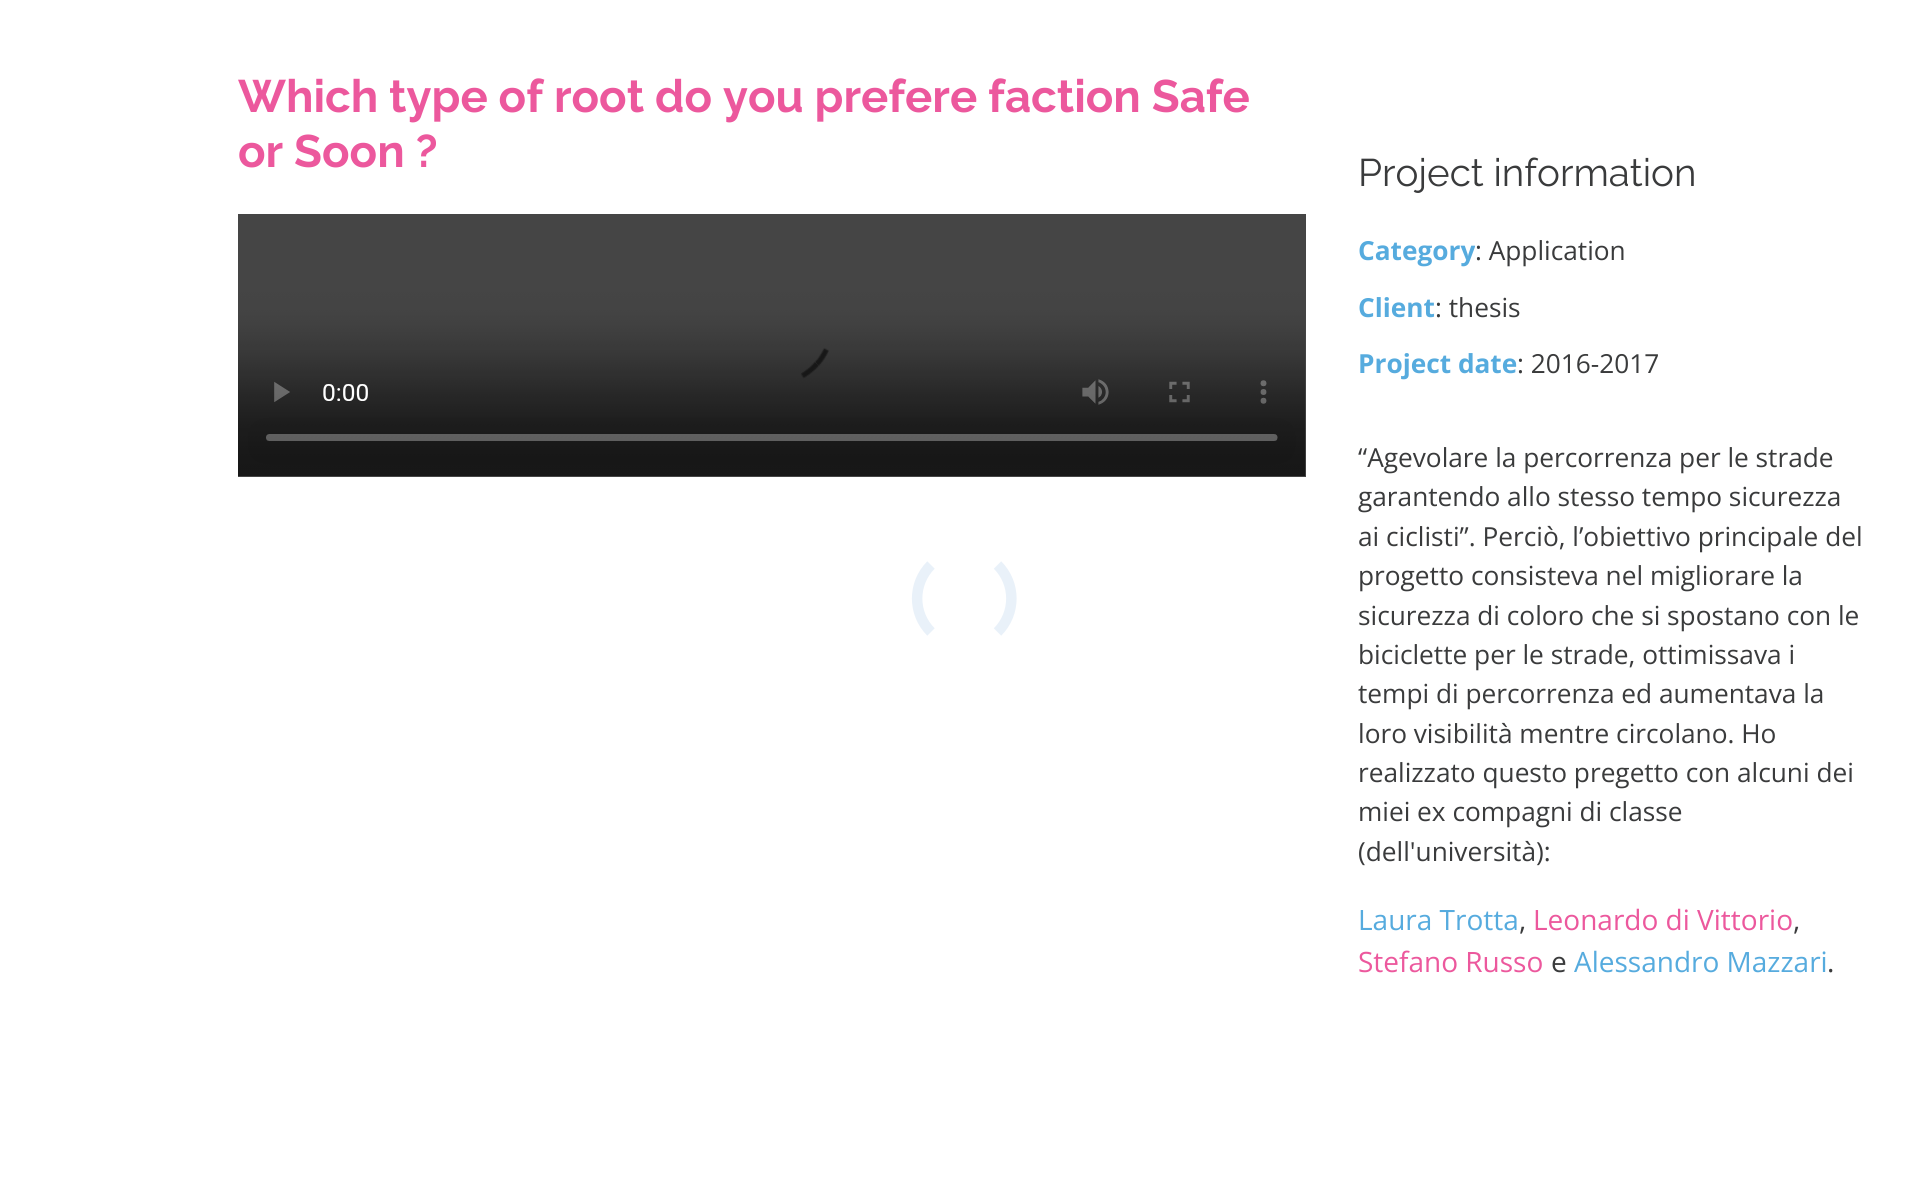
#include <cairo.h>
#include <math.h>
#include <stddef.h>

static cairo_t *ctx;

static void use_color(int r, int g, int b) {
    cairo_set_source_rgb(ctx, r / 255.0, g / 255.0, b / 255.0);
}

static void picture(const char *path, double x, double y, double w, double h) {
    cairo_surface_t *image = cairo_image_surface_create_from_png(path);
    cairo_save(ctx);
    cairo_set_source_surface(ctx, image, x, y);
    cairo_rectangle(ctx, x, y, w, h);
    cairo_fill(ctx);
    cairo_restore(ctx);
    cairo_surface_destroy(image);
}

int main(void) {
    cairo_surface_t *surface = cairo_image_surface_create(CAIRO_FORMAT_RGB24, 1927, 1196);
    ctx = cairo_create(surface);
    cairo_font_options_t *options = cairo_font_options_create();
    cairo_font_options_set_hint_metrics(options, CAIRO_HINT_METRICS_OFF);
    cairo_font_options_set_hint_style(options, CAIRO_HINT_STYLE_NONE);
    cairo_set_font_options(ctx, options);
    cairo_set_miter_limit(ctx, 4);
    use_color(255, 255, 255);
    cairo_paint(ctx);
    cairo_select_font_face(ctx, "Raleway", CAIRO_FONT_SLANT_NORMAL, CAIRO_FONT_WEIGHT_BOLD);
    cairo_set_font_size(ctx, 45.5);
    use_color(236, 88, 157);
    cairo_move_to(ctx, 238, 112);
    cairo_show_text(ctx, "Which type of root do you prefere faction Safe");
    cairo_move_to(ctx, 238, 167);
    cairo_show_text(ctx, "or Soon ?");
    picture("img1.png", 238, 214, 1068, 263);
    cairo_select_font_face(ctx, "Raleway", CAIRO_FONT_SLANT_NORMAL, CAIRO_FONT_WEIGHT_NORMAL);
    cairo_set_font_size(ctx, 38.5);
    use_color(58, 59, 60);
    cairo_move_to(ctx, 1358, 186);
    cairo_show_text(ctx, "Project information");
    cairo_select_font_face(ctx, "Open Sans", CAIRO_FONT_SLANT_NORMAL, CAIRO_FONT_WEIGHT_BOLD);
    cairo_set_font_size(ctx, 26.25);
    use_color(86, 171, 222);
    cairo_move_to(ctx, 1358, 260);
    cairo_show_text(ctx, "Category");
    cairo_select_font_face(ctx, "Open Sans", CAIRO_FONT_SLANT_NORMAL, CAIRO_FONT_WEIGHT_NORMAL);
    use_color(58, 59, 60);
    cairo_move_to(ctx, 1475, 260);
    cairo_show_text(ctx, ": Application");
    cairo_select_font_face(ctx, "Open Sans", CAIRO_FONT_SLANT_NORMAL, CAIRO_FONT_WEIGHT_BOLD);
    use_color(86, 171, 222);
    cairo_move_to(ctx, 1358, 317);
    cairo_show_text(ctx, "Client");
    cairo_select_font_face(ctx, "Open Sans", CAIRO_FONT_SLANT_NORMAL, CAIRO_FONT_WEIGHT_NORMAL);
    use_color(58, 59, 60);
    cairo_move_to(ctx, 1435, 317);
    cairo_show_text(ctx, ": thesis");
    cairo_select_font_face(ctx, "Open Sans", CAIRO_FONT_SLANT_NORMAL, CAIRO_FONT_WEIGHT_BOLD);
    use_color(86, 171, 222);
    cairo_move_to(ctx, 1358, 373);
    cairo_show_text(ctx, "Project date");
    cairo_select_font_face(ctx, "Open Sans", CAIRO_FONT_SLANT_NORMAL, CAIRO_FONT_WEIGHT_NORMAL);
    use_color(58, 59, 60);
    cairo_move_to(ctx, 1517, 373);
    cairo_show_text(ctx, ": 2016-2017");
    cairo_move_to(ctx, 1358, 467);
    cairo_show_text(ctx, "“Agevolare la percorrenza per le strade");
    cairo_move_to(ctx, 1358, 506);
    cairo_show_text(ctx, "garantendo allo stesso tempo sicurezza");
    cairo_move_to(ctx, 1358, 546);
    cairo_show_text(ctx, "ai ciclisti”. Perciò, l’obiettivo principale del");
    cairo_move_to(ctx, 1358, 585);
    cairo_show_text(ctx, "progetto consisteva nel migliorare la");
    cairo_move_to(ctx, 1358, 625);
    cairo_show_text(ctx, "sicurezza di coloro che si spostano con le");
    cairo_move_to(ctx, 1358, 664);
    cairo_show_text(ctx, "biciclette per le strade, ottimissava i");
    cairo_move_to(ctx, 1358, 703);
    cairo_show_text(ctx, "tempi di percorrenza ed aumentava la");
    cairo_move_to(ctx, 1358, 743);
    cairo_show_text(ctx, "loro visibilità mentre circolano. Ho");
    cairo_move_to(ctx, 1358, 782);
    cairo_show_text(ctx, "realizzato questo pregetto con alcuni dei");
    cairo_move_to(ctx, 1358, 821);
    cairo_show_text(ctx, "miei ex compagni di classe");
    cairo_move_to(ctx, 1358, 861);
    cairo_show_text(ctx, "(dell'università):");
    cairo_set_font_size(ctx, 28);
    use_color(86, 171, 222);
    cairo_move_to(ctx, 1358, 930);
    cairo_show_text(ctx, "Laura Trotta");
    use_color(58, 59, 60);
    cairo_move_to(ctx, 1519, 930);
    cairo_show_text(ctx, ",");
    use_color(236, 88, 157);
    cairo_move_to(ctx, 1533, 930);
    cairo_show_text(ctx, "Leonardo di Vittorio");
    use_color(58, 59, 60);
    cairo_move_to(ctx, 1793, 930);
    cairo_show_text(ctx, ",");
    use_color(236, 88, 157);
    cairo_move_to(ctx, 1358, 972);
    cairo_show_text(ctx, "Stefano Russo");
    use_color(58, 59, 60);
    cairo_move_to(ctx, 1551, 972);
    cairo_show_text(ctx, "e");
    use_color(86, 171, 222);
    cairo_move_to(ctx, 1574, 972);
    cairo_show_text(ctx, "Alessandro Mazzari");
    use_color(58, 59, 60);
    cairo_move_to(ctx, 1827, 972);
    cairo_show_text(ctx, ".");
    cairo_new_path(ctx);
    cairo_move_to(ctx, 997.5, 565);
    cairo_curve_to(ctx, 1016, 583.5, 1016, 613.5, 997.5, 632);
    use_color(233, 241, 249);
    cairo_set_line_width(ctx, 10.5);
    cairo_stroke(ctx);
    cairo_new_path(ctx);
    cairo_move_to(ctx, 931, 632);
    cairo_curve_to(ctx, 912.5, 613.5, 912.5, 583.5, 931, 565);
    cairo_stroke(ctx);
    cairo_surface_write_to_png(surface, "result.png");
    cairo_font_options_destroy(options);
    cairo_destroy(ctx);
    cairo_surface_destroy(surface);
    return 0;
}
